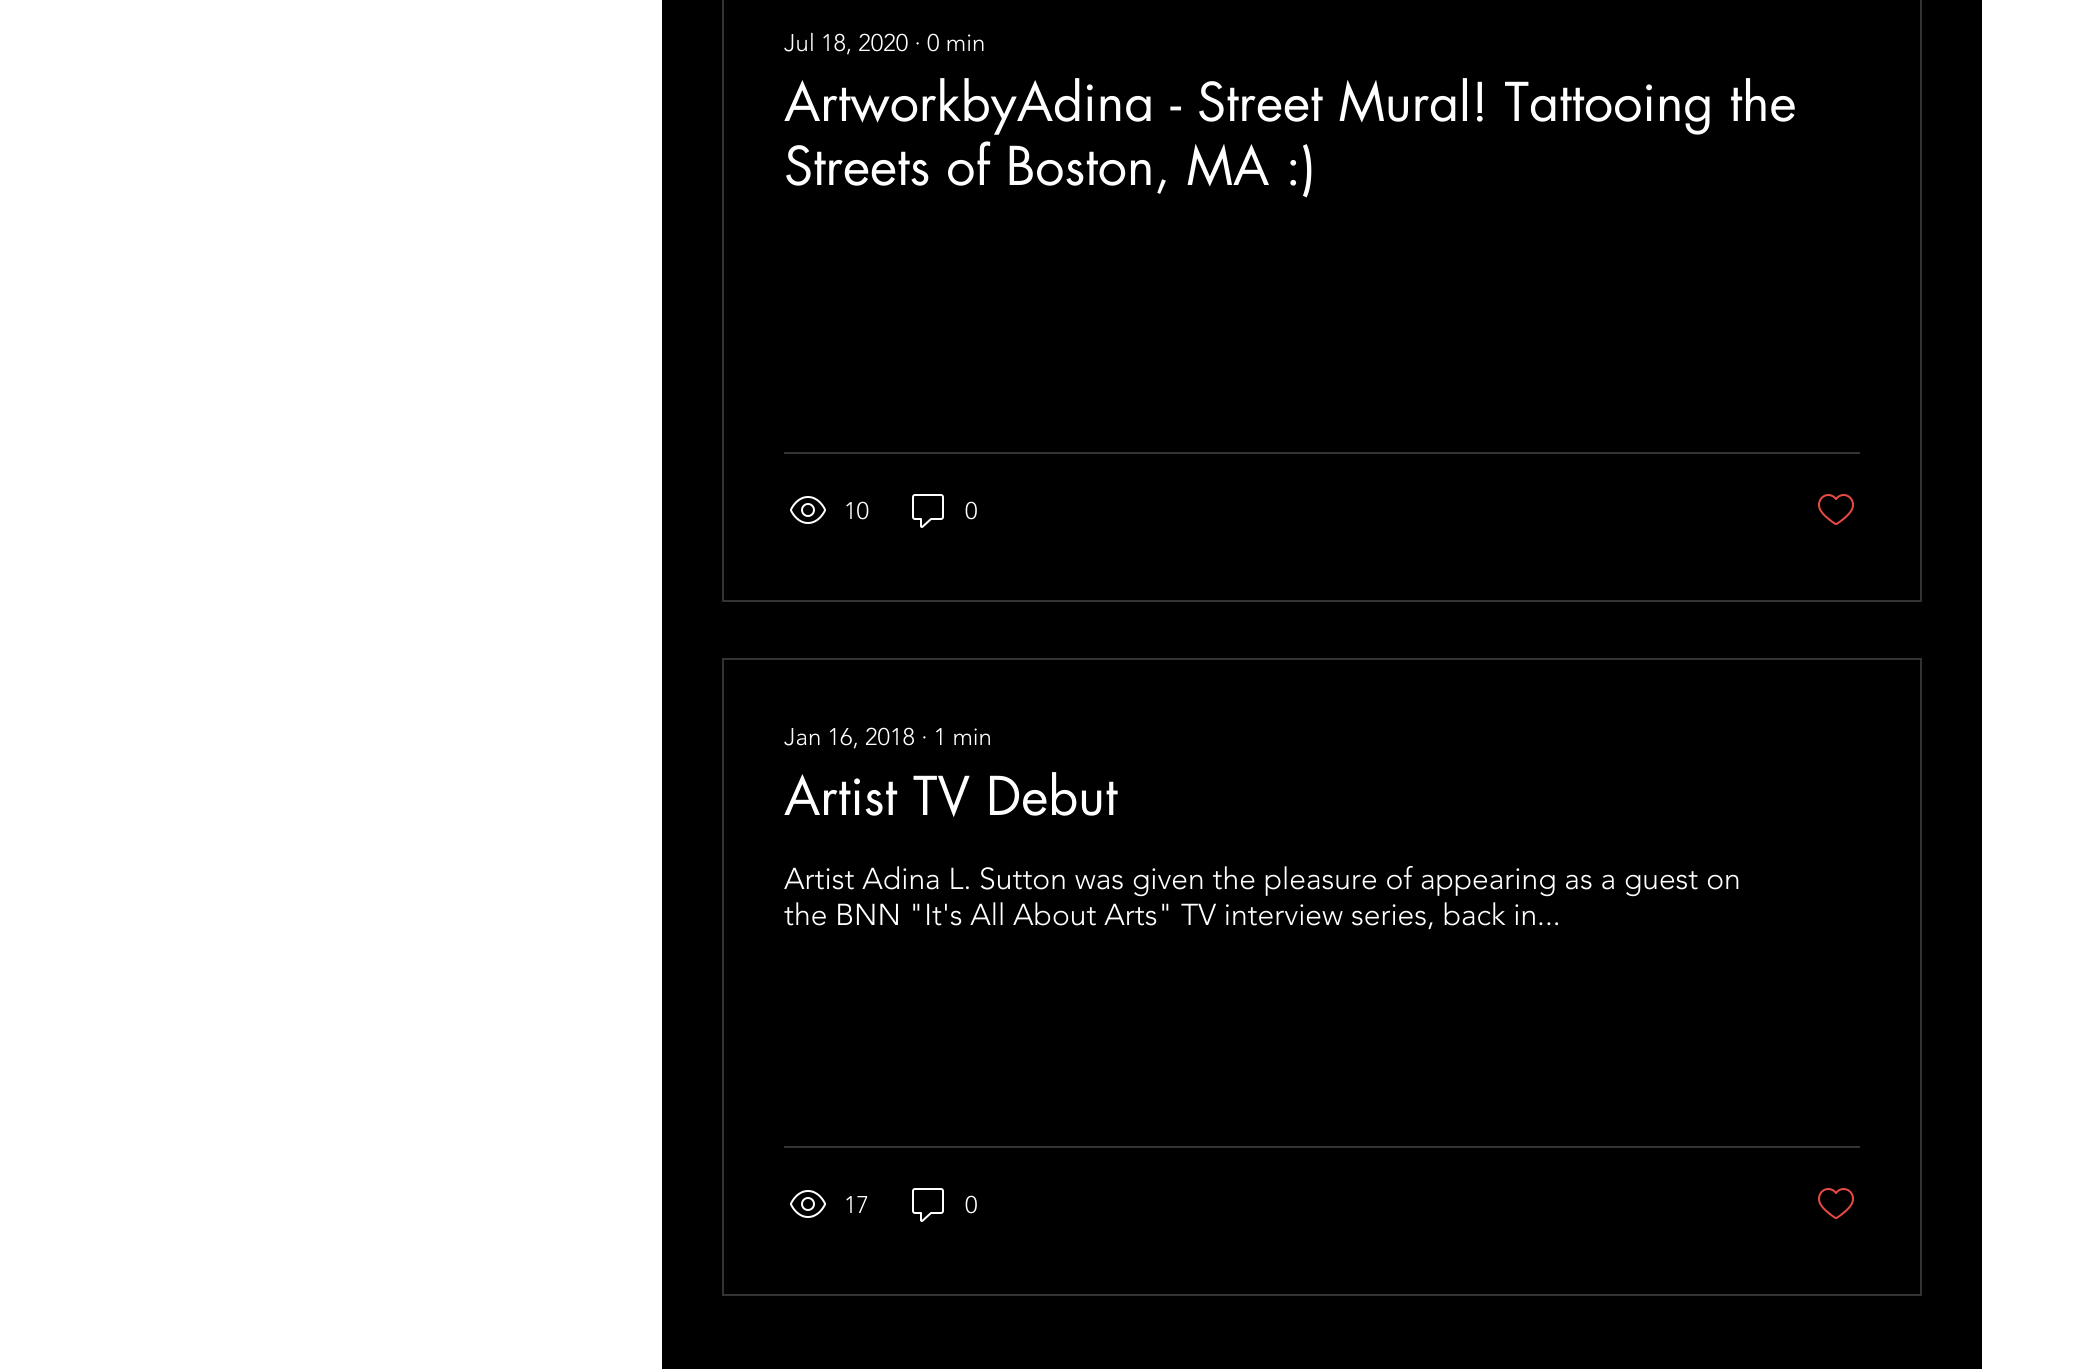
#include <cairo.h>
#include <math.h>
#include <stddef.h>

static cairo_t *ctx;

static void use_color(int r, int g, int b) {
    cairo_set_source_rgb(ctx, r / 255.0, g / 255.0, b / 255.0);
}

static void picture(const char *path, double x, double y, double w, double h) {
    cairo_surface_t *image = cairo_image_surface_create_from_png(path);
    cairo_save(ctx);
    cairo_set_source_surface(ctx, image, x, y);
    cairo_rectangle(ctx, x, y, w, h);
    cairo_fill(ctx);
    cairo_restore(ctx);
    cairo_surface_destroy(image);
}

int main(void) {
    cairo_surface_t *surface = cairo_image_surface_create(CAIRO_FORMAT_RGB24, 2084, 1369);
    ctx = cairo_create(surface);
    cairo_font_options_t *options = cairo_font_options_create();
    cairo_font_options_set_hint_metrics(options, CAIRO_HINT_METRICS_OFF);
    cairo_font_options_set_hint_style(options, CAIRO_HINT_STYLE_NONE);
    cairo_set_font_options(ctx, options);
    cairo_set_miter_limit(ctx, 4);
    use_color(255, 255, 255);
    cairo_paint(ctx);
    use_color(0, 0, 0);
    cairo_rectangle(ctx, 662, 0, 1320, 1369);
    cairo_fill(ctx);
    cairo_rectangle(ctx, 723, -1, 1198, 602);
    use_color(51, 51, 51);
    cairo_stroke(ctx);
    cairo_select_font_face(ctx, "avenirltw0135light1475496 Light", CAIRO_FONT_SLANT_NORMAL, CAIRO_FONT_WEIGHT_NORMAL);
    cairo_set_font_size(ctx, 24);
    use_color(255, 255, 255);
    cairo_move_to(ctx, 784, 51);
    cairo_show_text(ctx, "Jul 18, 2020 ∙ 0 min");
    cairo_select_font_face(ctx, "futura", CAIRO_FONT_SLANT_NORMAL, CAIRO_FONT_WEIGHT_NORMAL);
    cairo_set_font_size(ctx, 52);
    cairo_move_to(ctx, 784, 121);
    cairo_show_text(ctx, "ArtworkbyAdina - Street Mural! Tattooing the");
    cairo_move_to(ctx, 784, 185);
    cairo_show_text(ctx, "Streets of Boston, MA :)");
    use_color(51, 51, 51);
    cairo_rectangle(ctx, 784, 452, 1076, 2);
    cairo_fill(ctx);
    picture("img1.png", 790, 496, 36, 28);
    cairo_select_font_face(ctx, "avenirltw0135light1475496 Light", CAIRO_FONT_SLANT_NORMAL, CAIRO_FONT_WEIGHT_NORMAL);
    cairo_set_font_size(ctx, 24);
    use_color(255, 255, 255);
    cairo_move_to(ctx, 844, 519);
    cairo_show_text(ctx, "10");
    picture("img2.png", 912, 494, 32, 34);
    cairo_move_to(ctx, 965, 519);
    cairo_show_text(ctx, "0");
    picture("img3.png", 1818, 494, 36, 31);
    cairo_rectangle(ctx, 723, 659, 1198, 636);
    use_color(51, 51, 51);
    cairo_stroke(ctx);
    use_color(255, 255, 255);
    cairo_move_to(ctx, 784, 745);
    cairo_show_text(ctx, "Jan 16, 2018 ∙ 1 min");
    cairo_select_font_face(ctx, "futura", CAIRO_FONT_SLANT_NORMAL, CAIRO_FONT_WEIGHT_NORMAL);
    cairo_set_font_size(ctx, 52);
    cairo_move_to(ctx, 784, 815);
    cairo_show_text(ctx, "Artist TV Debut");
    cairo_select_font_face(ctx, "avenirltw0135light1475496 Light", CAIRO_FONT_SLANT_NORMAL, CAIRO_FONT_WEIGHT_NORMAL);
    cairo_set_font_size(ctx, 30);
    cairo_move_to(ctx, 784, 889);
    cairo_show_text(ctx, "Artist Adina L. Sutton was given the pleasure of appearing as a guest on");
    cairo_move_to(ctx, 784, 925);
    cairo_show_text(ctx, "the BNN \"It's All About Arts\" TV interview series, back in...");
    use_color(51, 51, 51);
    cairo_rectangle(ctx, 784, 1146, 1076, 2);
    cairo_fill(ctx);
    picture("img1.png", 790, 1190, 36, 28);
    cairo_set_font_size(ctx, 24);
    use_color(255, 255, 255);
    cairo_move_to(ctx, 844, 1213);
    cairo_show_text(ctx, "17");
    picture("img2.png", 912, 1188, 32, 34);
    cairo_move_to(ctx, 965, 1213);
    cairo_show_text(ctx, "0");
    picture("img3.png", 1818, 1188, 36, 31);
    cairo_surface_write_to_png(surface, "result.png");
    cairo_font_options_destroy(options);
    cairo_destroy(ctx);
    cairo_surface_destroy(surface);
    return 0;
}
